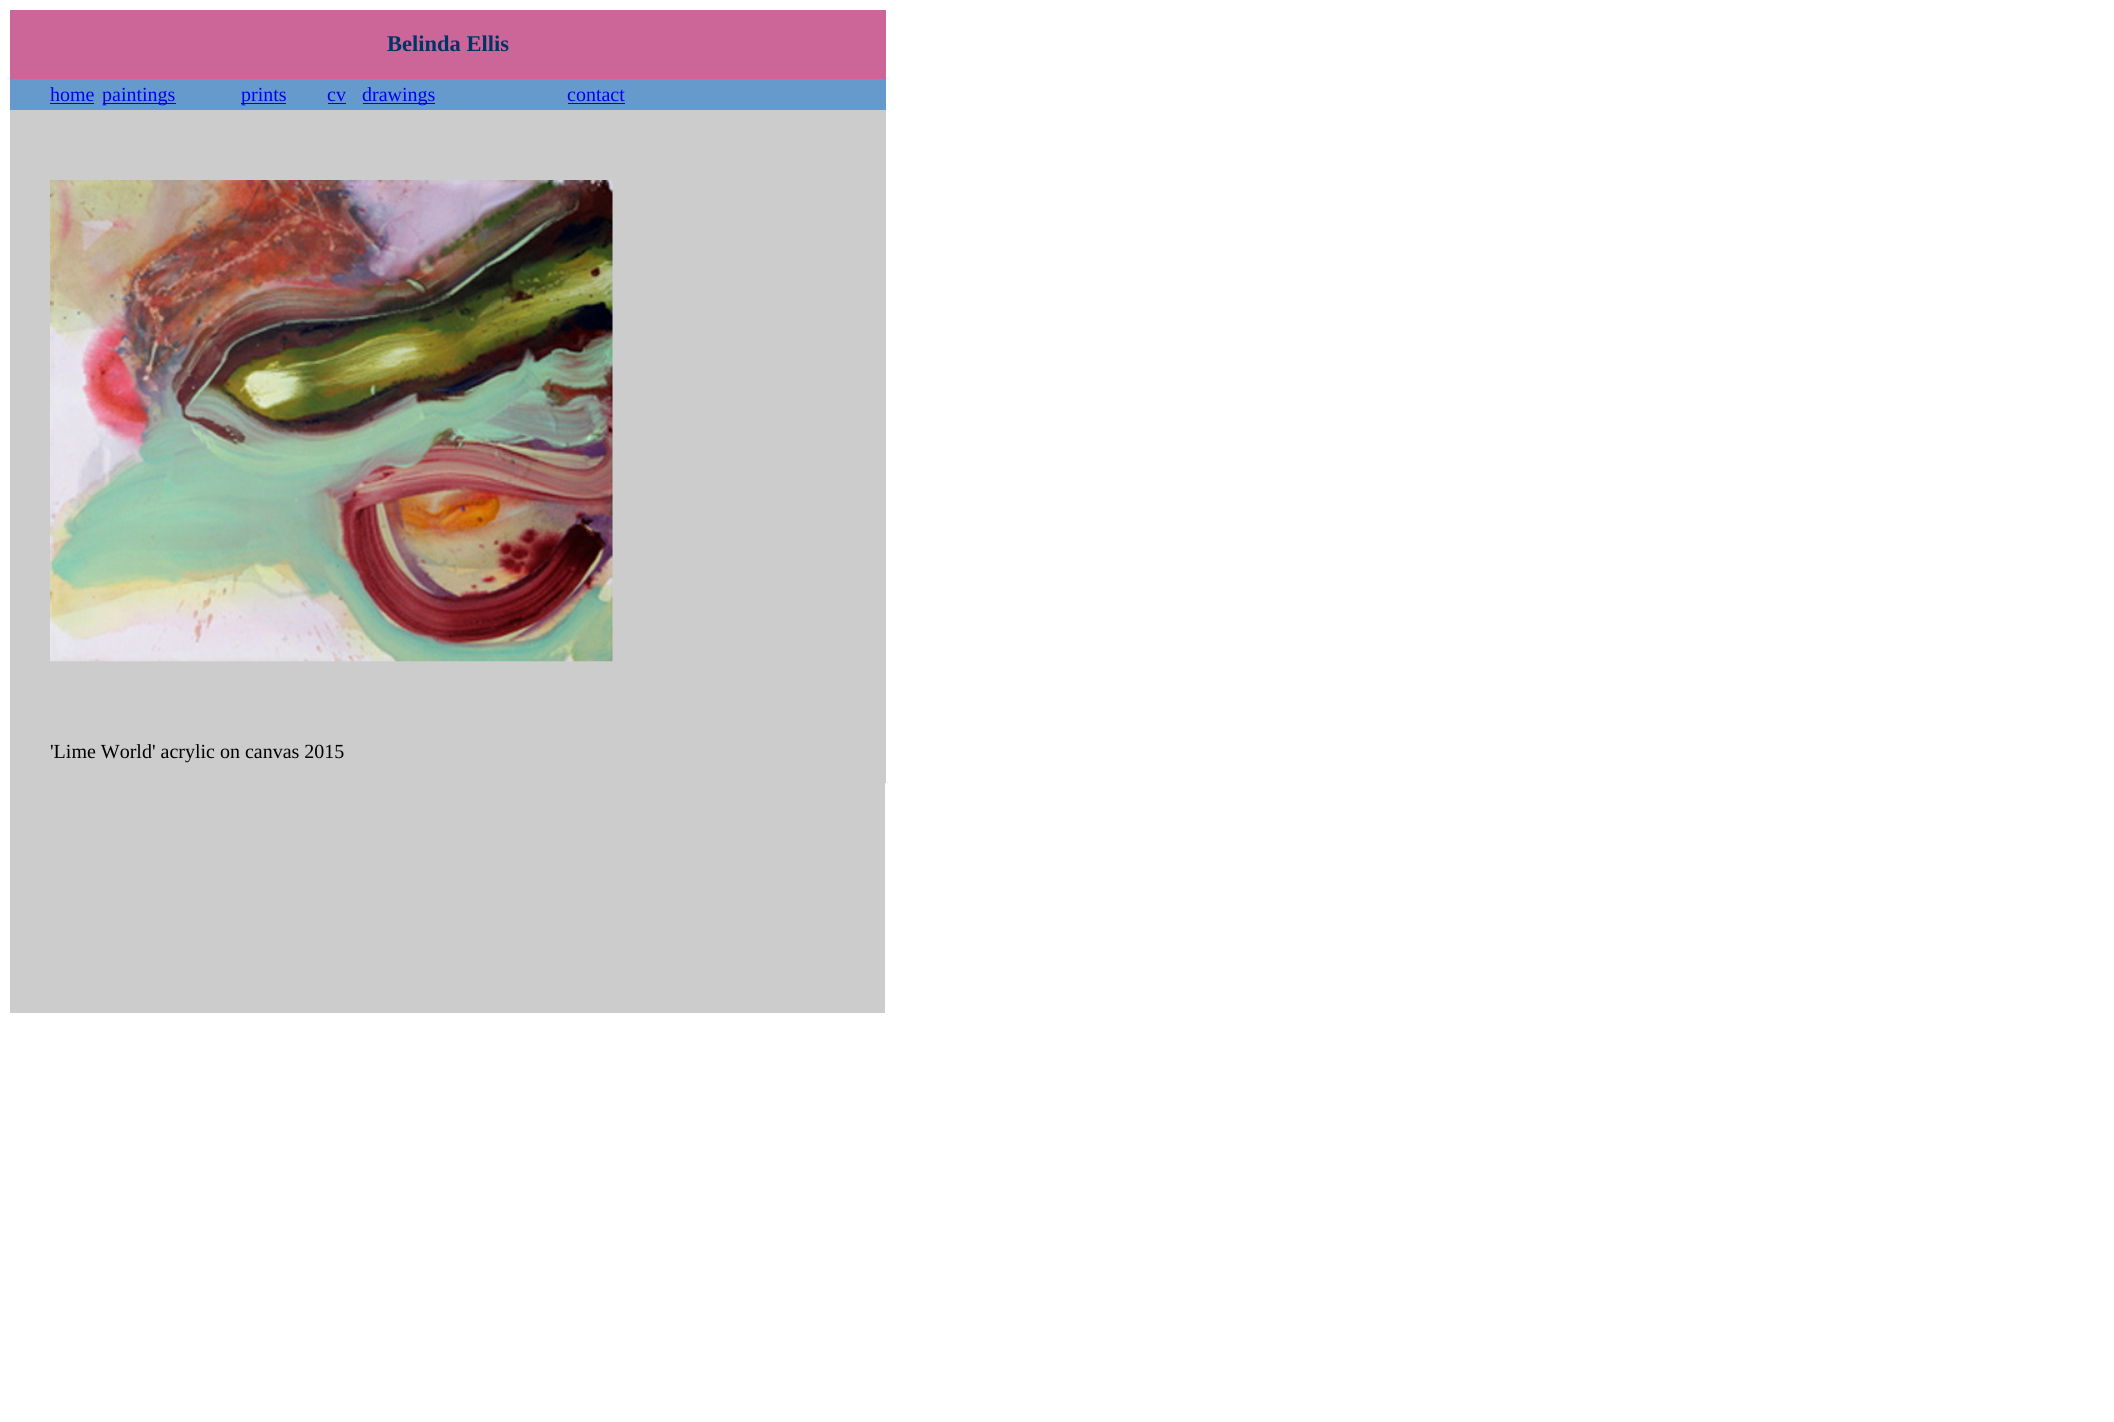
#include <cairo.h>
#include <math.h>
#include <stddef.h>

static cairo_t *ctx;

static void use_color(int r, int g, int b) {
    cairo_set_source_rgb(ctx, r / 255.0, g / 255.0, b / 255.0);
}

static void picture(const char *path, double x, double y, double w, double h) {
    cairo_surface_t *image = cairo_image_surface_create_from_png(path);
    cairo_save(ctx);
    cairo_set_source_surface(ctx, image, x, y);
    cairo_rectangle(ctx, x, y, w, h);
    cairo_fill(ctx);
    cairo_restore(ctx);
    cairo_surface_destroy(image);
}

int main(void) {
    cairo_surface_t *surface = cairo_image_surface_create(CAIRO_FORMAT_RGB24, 2114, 1422);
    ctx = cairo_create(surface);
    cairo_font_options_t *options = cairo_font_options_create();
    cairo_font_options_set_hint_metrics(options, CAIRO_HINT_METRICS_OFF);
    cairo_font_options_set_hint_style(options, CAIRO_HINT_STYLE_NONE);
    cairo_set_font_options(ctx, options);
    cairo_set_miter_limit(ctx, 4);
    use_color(255, 255, 255);
    cairo_paint(ctx);
    use_color(204, 204, 204);
    cairo_rectangle(ctx, 10, 110, 876, 673);
    cairo_fill(ctx);
    use_color(204, 102, 153);
    cairo_rectangle(ctx, 10, 10, 876, 69);
    cairo_fill(ctx);
    cairo_select_font_face(ctx, "Liberation Serif", CAIRO_FONT_SLANT_NORMAL, CAIRO_FONT_WEIGHT_BOLD);
    cairo_set_font_size(ctx, 22.5);
    use_color(0, 51, 102);
    cairo_move_to(ctx, 387, 51);
    cairo_show_text(ctx, "Belinda Ellis");
    use_color(102, 153, 204);
    cairo_rectangle(ctx, 10, 79, 876, 31);
    cairo_fill(ctx);
    cairo_select_font_face(ctx, "Liberation Serif", CAIRO_FONT_SLANT_NORMAL, CAIRO_FONT_WEIGHT_NORMAL);
    cairo_set_font_size(ctx, 20);
    use_color(0, 0, 238);
    cairo_move_to(ctx, 50, 101);
    cairo_show_text(ctx, "home");
    cairo_rectangle(ctx, 50, 103, 44, 1);
    cairo_fill(ctx);
    cairo_rectangle(ctx, 103, 103, 73, 1);
    cairo_fill(ctx);
    cairo_move_to(ctx, 102, 101);
    cairo_show_text(ctx, "paintings");
    cairo_rectangle(ctx, 241, 103, 45, 1);
    cairo_fill(ctx);
    cairo_move_to(ctx, 241, 101);
    cairo_show_text(ctx, "prints");
    cairo_move_to(ctx, 327, 101);
    cairo_show_text(ctx, "cv");
    cairo_rectangle(ctx, 328, 103, 18, 1);
    cairo_fill(ctx);
    cairo_rectangle(ctx, 363, 103, 72, 1);
    cairo_fill(ctx);
    cairo_move_to(ctx, 362, 101);
    cairo_show_text(ctx, "drawings");
    cairo_move_to(ctx, 567, 101);
    cairo_show_text(ctx, "contact");
    cairo_rectangle(ctx, 568, 103, 57, 1);
    cairo_fill(ctx);
    picture("img1.png", 50, 180, 563, 482);
    use_color(0, 0, 0);
    cairo_move_to(ctx, 50, 758);
    cairo_show_text(ctx, "'Lime World' acrylic on canvas 2015");
    use_color(204, 204, 204);
    cairo_rectangle(ctx, 10, 783, 875, 230);
    cairo_fill(ctx);
    cairo_surface_write_to_png(surface, "result.png");
    cairo_font_options_destroy(options);
    cairo_destroy(ctx);
    cairo_surface_destroy(surface);
    return 0;
}
